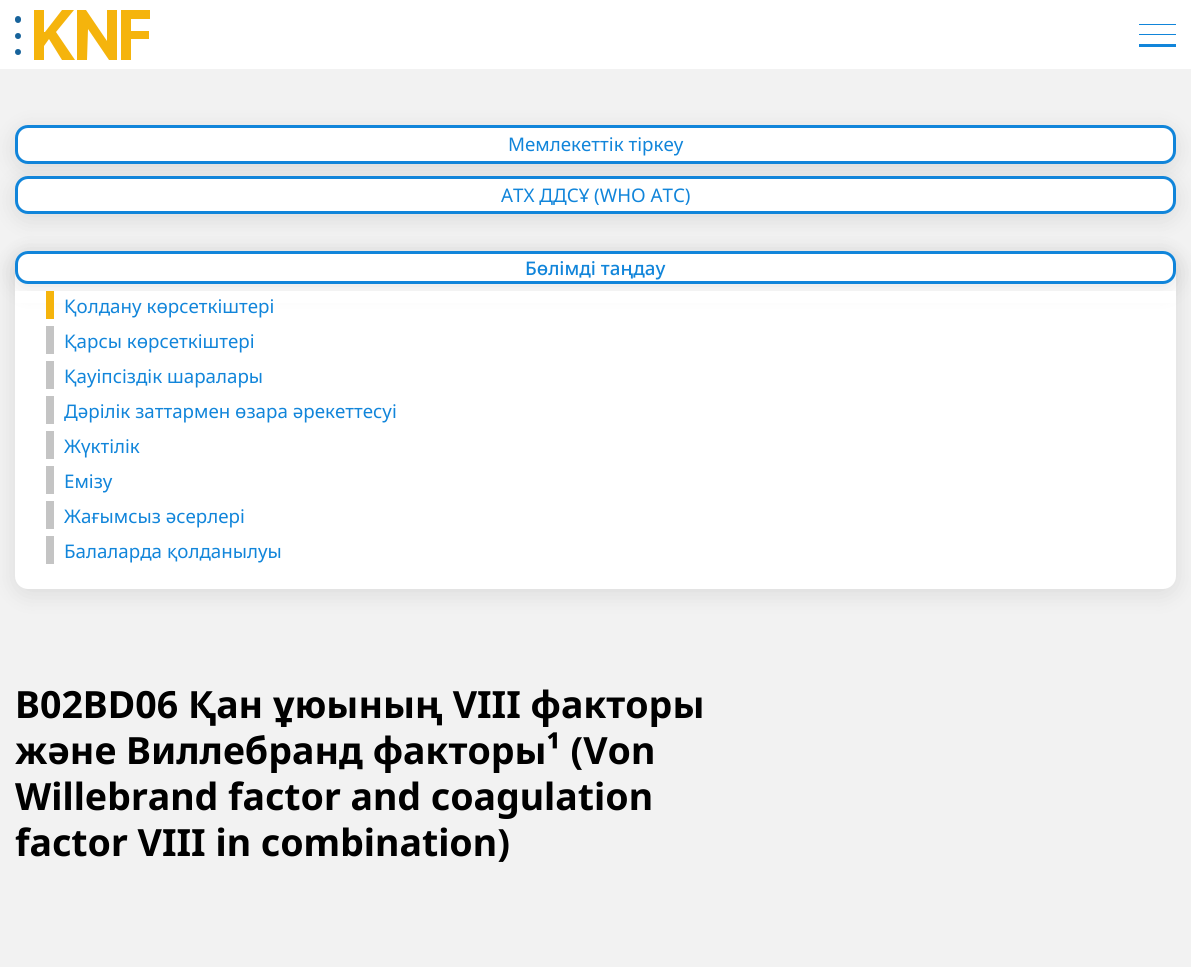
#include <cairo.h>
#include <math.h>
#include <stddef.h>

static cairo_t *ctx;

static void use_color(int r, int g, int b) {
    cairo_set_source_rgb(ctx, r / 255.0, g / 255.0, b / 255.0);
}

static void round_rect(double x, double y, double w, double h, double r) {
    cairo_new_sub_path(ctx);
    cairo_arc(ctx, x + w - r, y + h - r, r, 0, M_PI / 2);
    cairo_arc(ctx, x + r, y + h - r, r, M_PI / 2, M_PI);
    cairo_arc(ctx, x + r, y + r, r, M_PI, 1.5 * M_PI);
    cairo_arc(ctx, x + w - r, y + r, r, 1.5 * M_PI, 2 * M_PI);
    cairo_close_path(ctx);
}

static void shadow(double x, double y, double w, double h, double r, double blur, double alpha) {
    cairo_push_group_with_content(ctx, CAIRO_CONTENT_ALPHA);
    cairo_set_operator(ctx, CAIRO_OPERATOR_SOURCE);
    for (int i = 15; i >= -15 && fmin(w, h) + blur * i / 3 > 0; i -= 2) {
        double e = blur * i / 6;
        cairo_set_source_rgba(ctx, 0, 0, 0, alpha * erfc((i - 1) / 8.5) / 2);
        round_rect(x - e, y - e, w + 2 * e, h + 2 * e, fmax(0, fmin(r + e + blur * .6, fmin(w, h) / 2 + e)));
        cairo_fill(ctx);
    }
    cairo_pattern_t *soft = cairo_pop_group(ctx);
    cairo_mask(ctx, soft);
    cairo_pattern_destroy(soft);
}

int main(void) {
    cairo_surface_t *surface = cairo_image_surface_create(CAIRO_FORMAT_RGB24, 1191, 967);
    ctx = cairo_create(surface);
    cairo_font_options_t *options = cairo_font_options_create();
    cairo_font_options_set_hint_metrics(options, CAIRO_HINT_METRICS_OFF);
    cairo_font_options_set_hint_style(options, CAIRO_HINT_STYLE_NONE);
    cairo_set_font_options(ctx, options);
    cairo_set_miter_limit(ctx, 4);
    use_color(242, 242, 242);
    cairo_paint(ctx);
    use_color(255, 255, 255);
    cairo_rectangle(ctx, 0, 0, 1191, 69);
    cairo_fill(ctx);
    use_color(245, 180, 12);
    cairo_new_path(ctx);
    cairo_move_to(ctx, 56, 32);
    cairo_line_to(ctx, 74, 10);
    cairo_line_to(ctx, 62, 10);
    cairo_line_to(ctx, 45, 32);
    cairo_line_to(ctx, 44, 32);
    cairo_line_to(ctx, 44, 10);
    cairo_line_to(ctx, 34, 10);
    cairo_line_to(ctx, 34, 60);
    cairo_line_to(ctx, 44, 60);
    cairo_line_to(ctx, 44, 46);
    cairo_line_to(ctx, 49, 39);
    cairo_line_to(ctx, 62, 60);
    cairo_line_to(ctx, 75, 60);
    cairo_close_path(ctx);
    cairo_fill(ctx);
    cairo_new_path(ctx);
    cairo_move_to(ctx, 117, 10);
    cairo_line_to(ctx, 117, 60);
    cairo_line_to(ctx, 109, 60);
    cairo_line_to(ctx, 88, 29);
    cairo_line_to(ctx, 87, 60);
    cairo_line_to(ctx, 77, 60);
    cairo_line_to(ctx, 77, 10);
    cairo_line_to(ctx, 86, 10);
    cairo_line_to(ctx, 107, 41);
    cairo_line_to(ctx, 107, 10);
    cairo_close_path(ctx);
    cairo_fill(ctx);
    cairo_save(ctx);
    cairo_rectangle(ctx, 34, 10, 116, 50);
    cairo_clip(ctx);
    cairo_new_path(ctx);
    cairo_move_to(ctx, 153, 19);
    cairo_line_to(ctx, 153, 10);
    cairo_line_to(ctx, 121, 10);
    cairo_line_to(ctx, 121, 60);
    cairo_line_to(ctx, 131, 60);
    cairo_line_to(ctx, 131, 39);
    cairo_line_to(ctx, 149, 39);
    cairo_line_to(ctx, 149, 31);
    cairo_line_to(ctx, 131, 31);
    cairo_line_to(ctx, 131, 19);
    cairo_close_path(ctx);
    cairo_fill(ctx);
    cairo_restore(ctx);
    use_color(17, 133, 218);
    cairo_rectangle(ctx, 1139, 24, 37, 1);
    cairo_fill(ctx);
    cairo_rectangle(ctx, 1139, 34, 37, 1);
    cairo_fill(ctx);
    cairo_rectangle(ctx, 1139, 44, 37, 3);
    cairo_fill(ctx);
    use_color(23, 99, 155);
    round_rect(15, 16, 6, 7, 3);
    cairo_fill(ctx);
    cairo_arc(ctx, 18, 36, 3, 0, 2 * M_PI);
    cairo_fill(ctx);
    cairo_arc(ctx, 18, 52, 3, 0, 2 * M_PI);
    cairo_fill(ctx);
    use_color(0, 0, 0);
    shadow(15, 130, 1161, 39, 13, 11, 0.1);
    use_color(255, 255, 255);
    round_rect(16.5, 126.5, 1158, 36, 11.5);
    cairo_fill_preserve(ctx);
    use_color(17, 133, 218);
    cairo_set_line_width(ctx, 3);
    cairo_stroke(ctx);
    use_color(0, 0, 0);
    shadow(15, 181, 1161, 38, 13, 11, 0.1);
    cairo_select_font_face(ctx, "Noto Sans", CAIRO_FONT_SLANT_NORMAL, CAIRO_FONT_WEIGHT_NORMAL);
    cairo_set_font_size(ctx, 18.75);
    use_color(17, 133, 218);
    cairo_move_to(ctx, 508, 151);
    cairo_show_text(ctx, "Мемлекеттік тіркеу");
    use_color(255, 255, 255);
    round_rect(16.5, 177.5, 1158, 35, 11.5);
    cairo_fill_preserve(ctx);
    use_color(17, 133, 218);
    cairo_stroke(ctx);
    cairo_move_to(ctx, 501, 202);
    cairo_show_text(ctx, "АТХ ДДСҰ (WHO ATC)");
    use_color(0, 0, 0);
    shadow(15, 256, 1161, 338, 13, 11, 0.1);
    use_color(255, 255, 255);
    round_rect(15, 251, 1161, 338, 13);
    cairo_fill(ctx);
    use_color(0, 0, 0);
    shadow(15, 256, 1161, 33, 13, 11, 0.1);
    use_color(255, 255, 255);
    round_rect(16.5, 252.5, 1158, 30, 11.5);
    cairo_fill_preserve(ctx);
    use_color(17, 133, 218);
    cairo_stroke(ctx);
    cairo_select_font_face(ctx, "Noto Sans Medium", CAIRO_FONT_SLANT_NORMAL, CAIRO_FONT_WEIGHT_NORMAL);
    cairo_move_to(ctx, 525, 275);
    cairo_show_text(ctx, "Бөлімді таңдау");
    use_color(255, 255, 255);
    cairo_rectangle(ctx, 15, 291, 1161, 12);
    cairo_fill(ctx);
    use_color(245, 180, 12);
    cairo_rectangle(ctx, 46, 291, 8, 28);
    cairo_fill(ctx);
    cairo_select_font_face(ctx, "Noto Sans", CAIRO_FONT_SLANT_NORMAL, CAIRO_FONT_WEIGHT_NORMAL);
    use_color(17, 133, 218);
    cairo_move_to(ctx, 64, 313);
    cairo_show_text(ctx, "Қолдану көрсеткіштері");
    use_color(196, 196, 196);
    cairo_rectangle(ctx, 46, 326, 8, 28);
    cairo_fill(ctx);
    use_color(17, 133, 218);
    cairo_move_to(ctx, 64, 348);
    cairo_show_text(ctx, "Қарсы көрсеткіштері");
    use_color(196, 196, 196);
    cairo_rectangle(ctx, 46, 361, 8, 28);
    cairo_fill(ctx);
    use_color(17, 133, 218);
    cairo_move_to(ctx, 64, 383);
    cairo_show_text(ctx, "Қауіпсіздік шаралары");
    use_color(196, 196, 196);
    cairo_rectangle(ctx, 46, 396, 8, 28);
    cairo_fill(ctx);
    use_color(17, 133, 218);
    cairo_move_to(ctx, 64, 418);
    cairo_show_text(ctx, "Дәрілік заттармен өзара әрекеттесуі");
    use_color(196, 196, 196);
    cairo_rectangle(ctx, 46, 431, 8, 28);
    cairo_fill(ctx);
    use_color(17, 133, 218);
    cairo_move_to(ctx, 64, 453);
    cairo_show_text(ctx, "Жүктілік");
    use_color(196, 196, 196);
    cairo_rectangle(ctx, 46, 466, 8, 28);
    cairo_fill(ctx);
    use_color(17, 133, 218);
    cairo_move_to(ctx, 64, 488);
    cairo_show_text(ctx, "Емізу");
    use_color(196, 196, 196);
    cairo_rectangle(ctx, 46, 501, 8, 28);
    cairo_fill(ctx);
    use_color(17, 133, 218);
    cairo_move_to(ctx, 64, 523);
    cairo_show_text(ctx, "Жағымсыз әсерлері");
    use_color(196, 196, 196);
    cairo_rectangle(ctx, 46, 536, 8, 28);
    cairo_fill(ctx);
    use_color(17, 133, 218);
    cairo_move_to(ctx, 64, 558);
    cairo_show_text(ctx, "Балаларда қолданылуы");
    cairo_select_font_face(ctx, "Noto Sans", CAIRO_FONT_SLANT_NORMAL, CAIRO_FONT_WEIGHT_BOLD);
    cairo_set_font_size(ctx, 37.5);
    use_color(0, 0, 0);
    cairo_move_to(ctx, 15, 718);
    cairo_show_text(ctx, "B02BD06 Қан ұюының VIII факторы");
    cairo_move_to(ctx, 15, 764);
    cairo_show_text(ctx, "және Виллебранд факторы¹ (Von");
    cairo_move_to(ctx, 15, 810);
    cairo_show_text(ctx, "Willebrand factor and coagulation");
    cairo_move_to(ctx, 15, 856);
    cairo_show_text(ctx, "factor VIII in combination)");
    cairo_surface_write_to_png(surface, "result.png");
    cairo_font_options_destroy(options);
    cairo_destroy(ctx);
    cairo_surface_destroy(surface);
    return 0;
}
